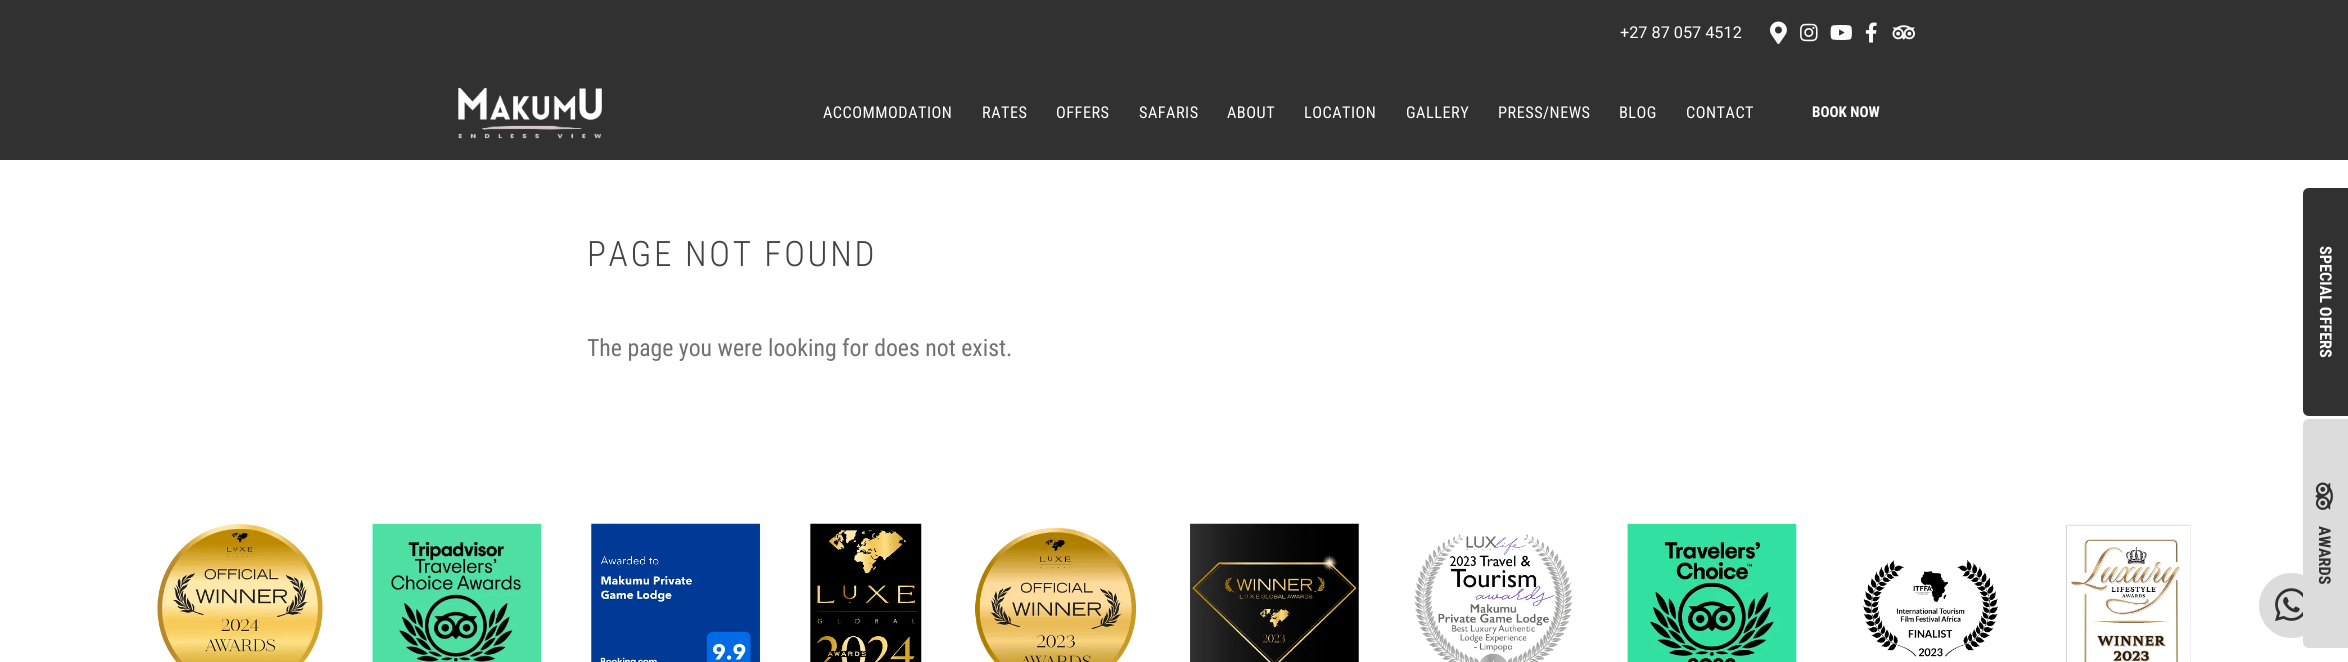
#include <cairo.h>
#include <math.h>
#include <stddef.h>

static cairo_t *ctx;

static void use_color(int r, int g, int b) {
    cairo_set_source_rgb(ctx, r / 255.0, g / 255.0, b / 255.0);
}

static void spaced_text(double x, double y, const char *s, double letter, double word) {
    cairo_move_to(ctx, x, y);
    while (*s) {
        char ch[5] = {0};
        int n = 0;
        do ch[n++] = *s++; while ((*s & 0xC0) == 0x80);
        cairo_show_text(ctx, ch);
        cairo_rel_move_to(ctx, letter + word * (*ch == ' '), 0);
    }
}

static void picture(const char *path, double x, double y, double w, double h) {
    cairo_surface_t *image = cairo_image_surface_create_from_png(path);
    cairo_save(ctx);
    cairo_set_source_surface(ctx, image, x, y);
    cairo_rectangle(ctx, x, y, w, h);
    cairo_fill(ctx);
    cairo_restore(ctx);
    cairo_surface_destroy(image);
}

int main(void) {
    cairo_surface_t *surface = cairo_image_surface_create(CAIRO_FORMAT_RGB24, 2348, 662);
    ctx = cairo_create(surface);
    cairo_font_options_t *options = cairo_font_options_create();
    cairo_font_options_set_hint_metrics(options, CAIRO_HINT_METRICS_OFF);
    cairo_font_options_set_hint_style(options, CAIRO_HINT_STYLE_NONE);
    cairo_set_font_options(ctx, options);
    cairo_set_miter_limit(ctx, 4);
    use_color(255, 255, 255);
    cairo_paint(ctx);
    use_color(49, 49, 49);
    cairo_rectangle(ctx, 0, 0, 2348, 160);
    cairo_fill(ctx);
    cairo_select_font_face(ctx, "Roboto", CAIRO_FONT_SLANT_NORMAL, CAIRO_FONT_WEIGHT_NORMAL);
    cairo_set_font_size(ctx, 16.25);
    use_color(255, 255, 255);
    cairo_move_to(ctx, 1620, 38);
    cairo_show_text(ctx, "+27 87 057 4512");
    picture("img1.png", 1770, 21, 17, 23);
    picture("img2.png", 1800, 23, 18, 19);
    picture("img3.png", 1830, 25, 22, 15);
    picture("img4.png", 1865, 22, 12, 21);
    picture("img5.png", 1892, 25, 23, 15);
    picture("img6.png", 458, 87, 144, 52);
    cairo_select_font_face(ctx, "Roboto Condensed", CAIRO_FONT_SLANT_NORMAL, CAIRO_FONT_WEIGHT_NORMAL);
    spaced_text(823, 118, "ACCOMMODATION", 0.5, 0);
    spaced_text(982, 118, "RATES", 0.5, 0);
    spaced_text(1056, 118, "OFFERS", 0.5, 0);
    spaced_text(1139, 118, "SAFARIS", 0.5, 0);
    spaced_text(1227, 118, "ABOUT", 0.5, 0);
    spaced_text(1304, 118, "LOCATION", 0.5, 0);
    spaced_text(1406, 118, "GALLERY", 0.5, 0);
    spaced_text(1498, 118, "PRESS/NEWS", 0.5, 0);
    spaced_text(1619, 118, "BLOG", 0.5, 0);
    spaced_text(1686, 118, "CONTACT", 0.5, 0);
    cairo_select_font_face(ctx, "Roboto Condensed", CAIRO_FONT_SLANT_NORMAL, CAIRO_FONT_WEIGHT_BOLD);
    cairo_set_font_size(ctx, 15);
    cairo_move_to(ctx, 1812, 117);
    cairo_show_text(ctx, "BOOK NOW");
    cairo_select_font_face(ctx, "Roboto Condensed Light", CAIRO_FONT_SLANT_NORMAL, CAIRO_FONT_WEIGHT_NORMAL);
    cairo_set_font_size(ctx, 35);
    use_color(68, 67, 67);
    spaced_text(587, 266, "PAGE NOT FOUND", 2.75, 0);
    cairo_select_font_face(ctx, "Roboto Condensed", CAIRO_FONT_SLANT_NORMAL, CAIRO_FONT_WEIGHT_NORMAL);
    cairo_set_font_size(ctx, 23.75);
    use_color(113, 113, 113);
    cairo_move_to(ctx, 587, 356);
    cairo_show_text(ctx, "The page you were looking for does not exist.");
    use_color(49, 49, 49);
    cairo_new_path(ctx);
    cairo_move_to(ctx, 2309, 188);
    cairo_line_to(ctx, 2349, 188);
    cairo_line_to(ctx, 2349, 416);
    cairo_line_to(ctx, 2309, 416);
    cairo_curve_to(ctx, 2305.5, 416, 2303, 413.5, 2303, 410);
    cairo_line_to(ctx, 2303, 194);
    cairo_curve_to(ctx, 2303, 190.5, 2305.5, 188, 2309, 188);
    cairo_close_path(ctx);
    cairo_fill(ctx);
    cairo_select_font_face(ctx, "Roboto Condensed", CAIRO_FONT_SLANT_NORMAL, CAIRO_FONT_WEIGHT_BOLD);
    cairo_set_font_size(ctx, 16.25);
    use_color(255, 255, 255);
    cairo_save(ctx);
    cairo_translate(ctx, 2320, 246);
    cairo_rotate(ctx, 90 * M_PI / 180);
    cairo_move_to(ctx, 0, 0);
    cairo_show_text(ctx, "SPECIAL OFFERS");
    cairo_restore(ctx);
    picture("img7.png", 157, 523, 166, 139);
    picture("img8.png", 372, 523, 170, 139);
    picture("img9.png", 591, 523, 169, 139);
    picture("img10.png", 810, 523, 112, 139);
    picture("img11.png", 974, 527, 163, 135);
    picture("img12.png", 1190, 523, 169, 139);
    picture("img13.png", 1414, 533, 159, 129);
    picture("img14.png", 1627, 523, 170, 139);
    picture("img15.png", 1863, 560, 135, 97);
    picture("img16.png", 2065, 524, 126, 138);
    use_color(220, 220, 220);
    cairo_arc(ctx, 2291.5, 605.5, 32.5, 0, 2 * M_PI);
    cairo_fill(ctx);
    cairo_new_path(ctx);
    cairo_move_to(ctx, 2309, 419);
    cairo_line_to(ctx, 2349, 419);
    cairo_line_to(ctx, 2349, 648);
    cairo_line_to(ctx, 2309, 648);
    cairo_curve_to(ctx, 2305.5, 648, 2303, 645.5, 2303, 642);
    cairo_line_to(ctx, 2303, 425);
    cairo_curve_to(ctx, 2303, 421.5, 2305.5, 419, 2309, 419);
    cairo_close_path(ctx);
    cairo_fill(ctx);
    picture("img17.png", 2315, 482, 18, 28);
    use_color(49, 49, 49);
    cairo_save(ctx);
    cairo_translate(ctx, 2319, 526);
    cairo_rotate(ctx, 90 * M_PI / 180);
    cairo_move_to(ctx, 0, 0);
    cairo_show_text(ctx, "AWARDS");
    cairo_restore(ctx);
    picture("img18.png", 2275, 588, 28, 33);
    cairo_surface_write_to_png(surface, "result.png");
    cairo_font_options_destroy(options);
    cairo_destroy(ctx);
    cairo_surface_destroy(surface);
    return 0;
}
